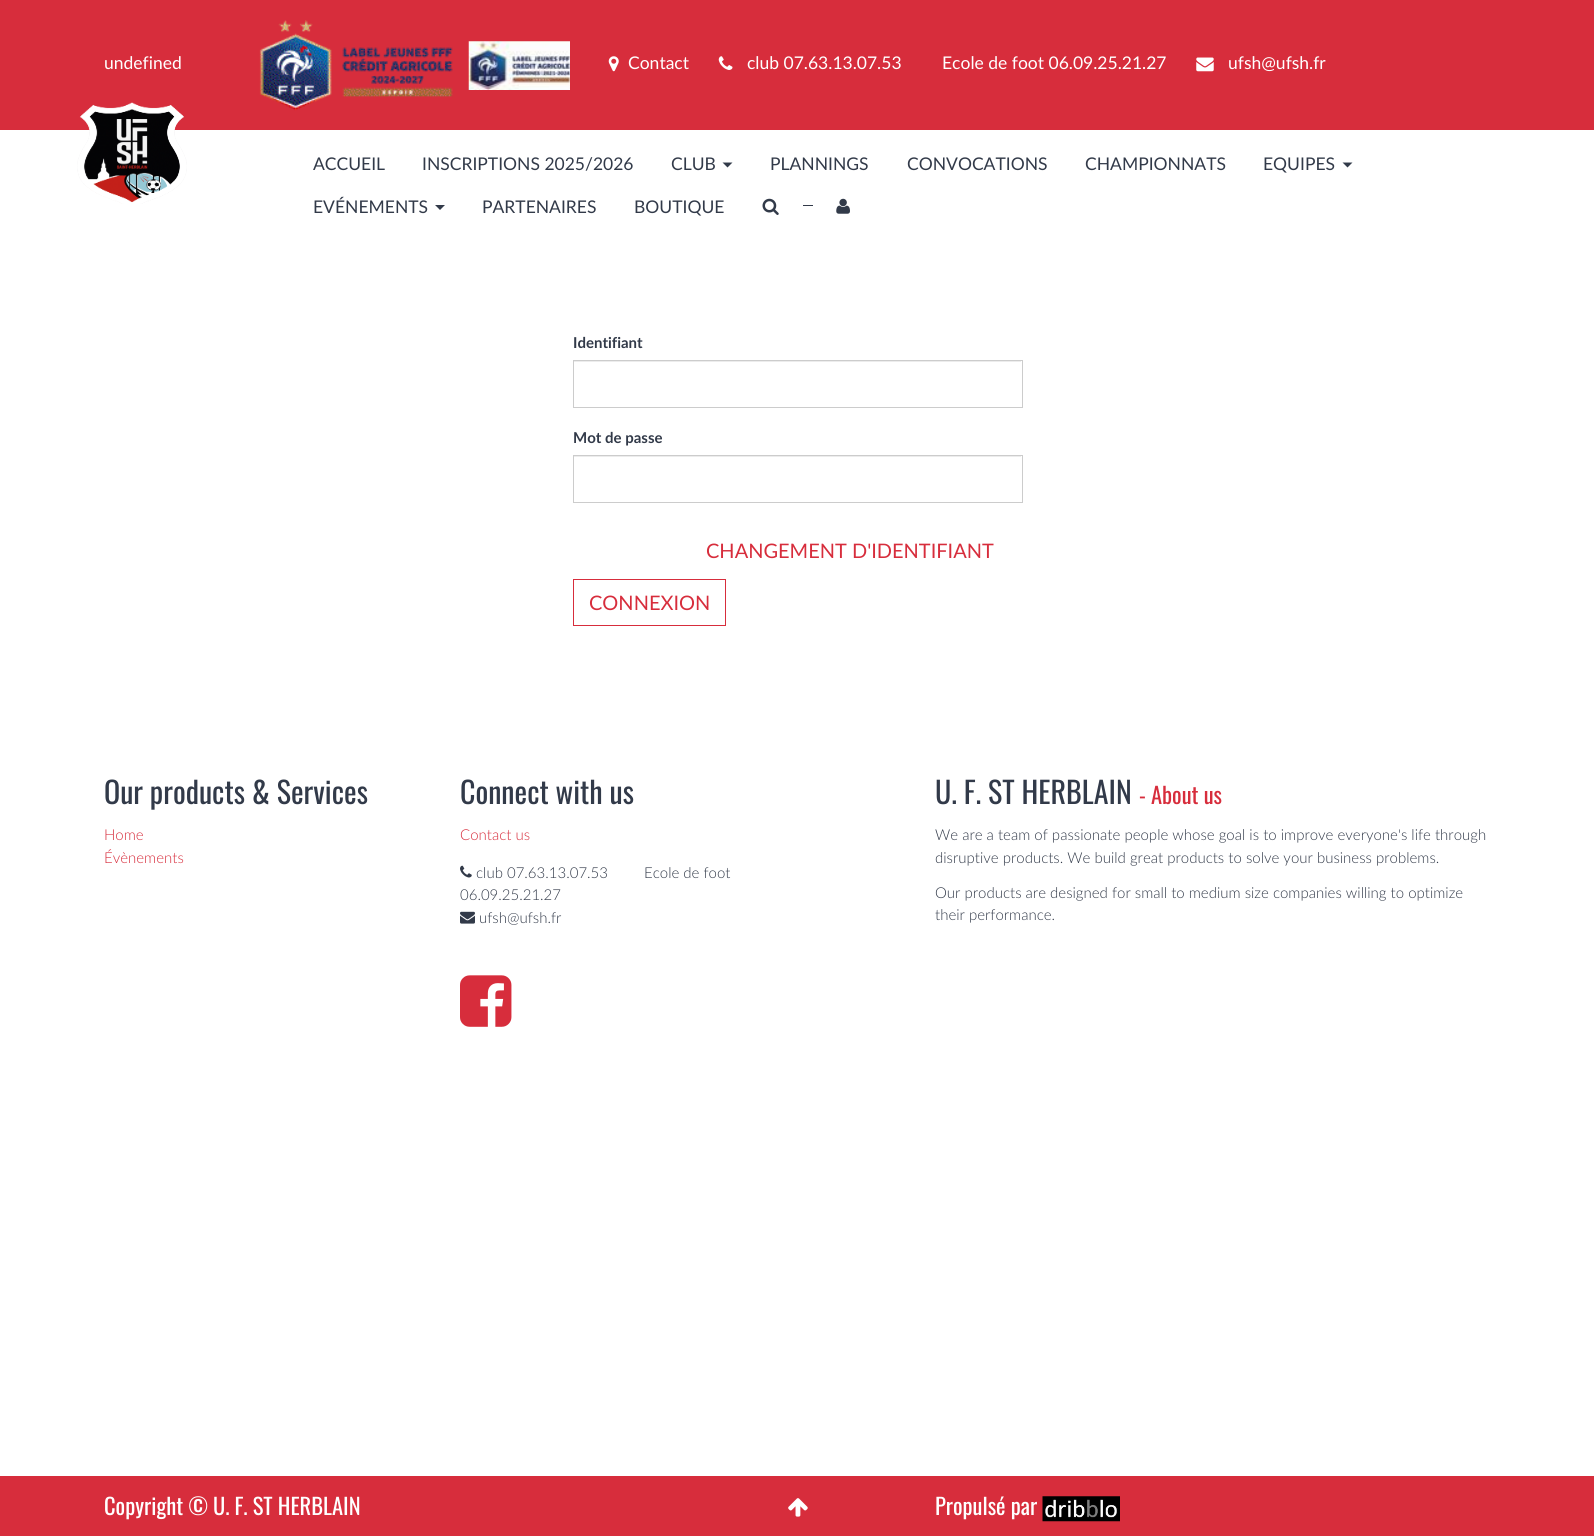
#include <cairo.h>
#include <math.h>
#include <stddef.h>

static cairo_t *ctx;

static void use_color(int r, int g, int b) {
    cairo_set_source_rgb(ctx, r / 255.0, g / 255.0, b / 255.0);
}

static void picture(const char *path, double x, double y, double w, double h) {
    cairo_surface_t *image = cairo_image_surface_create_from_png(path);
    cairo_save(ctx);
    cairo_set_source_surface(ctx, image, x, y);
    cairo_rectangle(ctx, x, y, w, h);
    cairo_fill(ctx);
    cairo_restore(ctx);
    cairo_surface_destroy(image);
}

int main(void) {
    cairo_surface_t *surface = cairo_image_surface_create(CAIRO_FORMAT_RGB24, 1594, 1536);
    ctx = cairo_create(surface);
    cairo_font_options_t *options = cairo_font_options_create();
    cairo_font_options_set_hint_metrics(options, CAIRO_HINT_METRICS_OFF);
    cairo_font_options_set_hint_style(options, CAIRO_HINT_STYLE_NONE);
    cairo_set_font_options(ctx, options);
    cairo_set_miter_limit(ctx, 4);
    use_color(255, 255, 255);
    cairo_paint(ctx);
    use_color(215, 45, 60);
    cairo_rectangle(ctx, 0, 0, 1594, 130);
    cairo_fill(ctx);
    cairo_select_font_face(ctx, "Lato", CAIRO_FONT_SLANT_NORMAL, CAIRO_FONT_WEIGHT_NORMAL);
    cairo_set_font_size(ctx, 17.5);
    use_color(255, 255, 255);
    cairo_move_to(ctx, 104, 69);
    cairo_show_text(ctx, "undefined");
    picture("img1.png", 259, 20, 194, 91);
    picture("img2.png", 468, 41, 102, 49);
    picture("img3.png", 608, 56, 11, 16);
    cairo_move_to(ctx, 628, 69);
    cairo_show_text(ctx, "Contact");
    picture("img4.png", 718, 56, 15, 14);
    cairo_move_to(ctx, 747, 69);
    cairo_show_text(ctx, "club 07.63.13.07.53");
    cairo_move_to(ctx, 942, 69);
    cairo_show_text(ctx, "Ecole de foot 06.09.25.21.27");
    picture("img5.png", 1196, 57, 18, 15);
    cairo_move_to(ctx, 1228, 69);
    cairo_show_text(ctx, "ufsh@ufsh.fr");
    picture("img6.png", 77, 102, 110, 102);
    use_color(50, 58, 73);
    cairo_move_to(ctx, 313, 170);
    cairo_show_text(ctx, "ACCUEIL");
    cairo_move_to(ctx, 422, 170);
    cairo_show_text(ctx, "INSCRIPTIONS 2025/2026");
    cairo_move_to(ctx, 671, 170);
    cairo_show_text(ctx, "CLUB");
    cairo_new_path(ctx);
    cairo_move_to(ctx, 722.5, 162.5);
    cairo_line_to(ctx, 732.5, 162.5);
    cairo_line_to(ctx, 727.5, 167.5);
    cairo_close_path(ctx);
    cairo_fill(ctx);
    cairo_move_to(ctx, 770, 170);
    cairo_show_text(ctx, "PLANNINGS");
    cairo_move_to(ctx, 907, 170);
    cairo_show_text(ctx, "CONVOCATIONS");
    cairo_move_to(ctx, 1085, 170);
    cairo_show_text(ctx, "CHAMPIONNATS");
    cairo_move_to(ctx, 1263, 170);
    cairo_show_text(ctx, "EQUIPES");
    cairo_new_path(ctx);
    cairo_move_to(ctx, 1342.5, 162.5);
    cairo_line_to(ctx, 1352.5, 162.5);
    cairo_line_to(ctx, 1347.5, 167.5);
    cairo_close_path(ctx);
    cairo_fill(ctx);
    cairo_move_to(ctx, 313, 213);
    cairo_show_text(ctx, "EVÉNEMENTS");
    cairo_new_path(ctx);
    cairo_move_to(ctx, 435, 205);
    cairo_line_to(ctx, 445, 205);
    cairo_line_to(ctx, 440, 210);
    cairo_close_path(ctx);
    cairo_fill(ctx);
    cairo_move_to(ctx, 482, 213);
    cairo_show_text(ctx, "PARTENAIRES");
    cairo_move_to(ctx, 634, 213);
    cairo_show_text(ctx, "BOUTIQUE");
    picture("img7.png", 762, 198, 17, 17);
    cairo_rectangle(ctx, 803, 205, 10, 1);
    cairo_fill(ctx);
    picture("img8.png", 836, 198, 14, 16);
    cairo_select_font_face(ctx, "Lato", CAIRO_FONT_SLANT_NORMAL, CAIRO_FONT_WEIGHT_BOLD);
    cairo_set_font_size(ctx, 15);
    cairo_move_to(ctx, 573, 348);
    cairo_show_text(ctx, "Identifiant");
    use_color(236, 236, 236);
    cairo_rectangle(ctx, 574, 361, 447, 1);
    cairo_fill(ctx);
    cairo_rectangle(ctx, 573.5, 360.5, 449, 47);
    use_color(204, 204, 204);
    cairo_set_line_width(ctx, 1);
    cairo_stroke(ctx);
    use_color(50, 58, 73);
    cairo_move_to(ctx, 573, 443);
    cairo_show_text(ctx, "Mot de passe");
    use_color(236, 236, 236);
    cairo_rectangle(ctx, 574, 456, 447, 1);
    cairo_fill(ctx);
    cairo_rectangle(ctx, 573.5, 455.5, 449, 47);
    use_color(204, 204, 204);
    cairo_stroke(ctx);
    cairo_select_font_face(ctx, "Lato", CAIRO_FONT_SLANT_NORMAL, CAIRO_FONT_WEIGHT_NORMAL);
    cairo_set_font_size(ctx, 20);
    use_color(215, 45, 60);
    cairo_move_to(ctx, 706, 558);
    cairo_show_text(ctx, "CHANGEMENT D'IDENTIFIANT");
    cairo_rectangle(ctx, 573.5, 579.5, 152, 46);
    cairo_stroke(ctx);
    cairo_move_to(ctx, 589, 610);
    cairo_show_text(ctx, "CONNEXION");
    cairo_select_font_face(ctx, "Oswald", CAIRO_FONT_SLANT_NORMAL, CAIRO_FONT_WEIGHT_NORMAL);
    cairo_set_font_size(ctx, 30);
    use_color(50, 58, 73);
    cairo_move_to(ctx, 104, 804);
    cairo_show_text(ctx, "Our products & Services");
    cairo_select_font_face(ctx, "Lato Light", CAIRO_FONT_SLANT_NORMAL, CAIRO_FONT_WEIGHT_NORMAL);
    cairo_set_font_size(ctx, 15);
    use_color(215, 45, 60);
    cairo_move_to(ctx, 104, 840);
    cairo_show_text(ctx, "Home");
    cairo_move_to(ctx, 104, 863);
    cairo_show_text(ctx, "Évènements");
    cairo_select_font_face(ctx, "Oswald", CAIRO_FONT_SLANT_NORMAL, CAIRO_FONT_WEIGHT_NORMAL);
    cairo_set_font_size(ctx, 30);
    use_color(50, 58, 73);
    cairo_move_to(ctx, 460, 804);
    cairo_show_text(ctx, "Connect with us");
    cairo_select_font_face(ctx, "Lato Light", CAIRO_FONT_SLANT_NORMAL, CAIRO_FONT_WEIGHT_NORMAL);
    cairo_set_font_size(ctx, 15);
    use_color(215, 45, 60);
    cairo_move_to(ctx, 460, 840);
    cairo_show_text(ctx, "Contact us");
    picture("img9.png", 460, 865, 12, 13);
    use_color(50, 58, 73);
    cairo_move_to(ctx, 476, 878);
    cairo_show_text(ctx, "club 07.63.13.07.53");
    cairo_move_to(ctx, 644, 878);
    cairo_show_text(ctx, "Ecole de foot");
    cairo_move_to(ctx, 460, 900);
    cairo_show_text(ctx, "06.09.25.21.27");
    picture("img10.png", 460, 911, 15, 13);
    cairo_move_to(ctx, 479, 923);
    cairo_show_text(ctx, "ufsh@ufsh.fr");
    picture("img11.png", 460, 975, 52, 52);
    cairo_select_font_face(ctx, "Oswald", CAIRO_FONT_SLANT_NORMAL, CAIRO_FONT_WEIGHT_NORMAL);
    cairo_set_font_size(ctx, 30);
    cairo_move_to(ctx, 935, 804);
    cairo_show_text(ctx, "U. F. ST HERBLAIN");
    cairo_set_font_size(ctx, 22.5);
    use_color(215, 45, 60);
    cairo_move_to(ctx, 1139, 804);
    cairo_show_text(ctx, "- About us");
    cairo_select_font_face(ctx, "Lato Light", CAIRO_FONT_SLANT_NORMAL, CAIRO_FONT_WEIGHT_NORMAL);
    cairo_set_font_size(ctx, 15);
    use_color(50, 58, 73);
    cairo_move_to(ctx, 935, 840);
    cairo_show_text(ctx, "We are a team of passionate people whose goal is to improve everyone's life through");
    cairo_move_to(ctx, 935, 863);
    cairo_show_text(ctx, "disruptive products. We build great products to solve your business problems.");
    cairo_move_to(ctx, 935, 898);
    cairo_show_text(ctx, "Our products are designed for small to medium size companies willing to optimize");
    cairo_move_to(ctx, 935, 920);
    cairo_show_text(ctx, "their performance.");
    use_color(215, 45, 60);
    cairo_rectangle(ctx, 0, 1476, 1594, 60);
    cairo_fill(ctx);
    cairo_select_font_face(ctx, "Oswald", CAIRO_FONT_SLANT_NORMAL, CAIRO_FONT_WEIGHT_NORMAL);
    cairo_set_font_size(ctx, 22.5);
    use_color(255, 255, 255);
    cairo_move_to(ctx, 104, 1515);
    cairo_show_text(ctx, "Copyright © U. F. ST HERBLAIN");
    picture("img12.png", 788, 1498, 20, 19);
    cairo_move_to(ctx, 935, 1515);
    cairo_show_text(ctx, "Propulsé par");
    picture("img13.png", 1042, 1496, 78, 26);
    cairo_surface_write_to_png(surface, "result.png");
    cairo_font_options_destroy(options);
    cairo_destroy(ctx);
    cairo_surface_destroy(surface);
    return 0;
}
